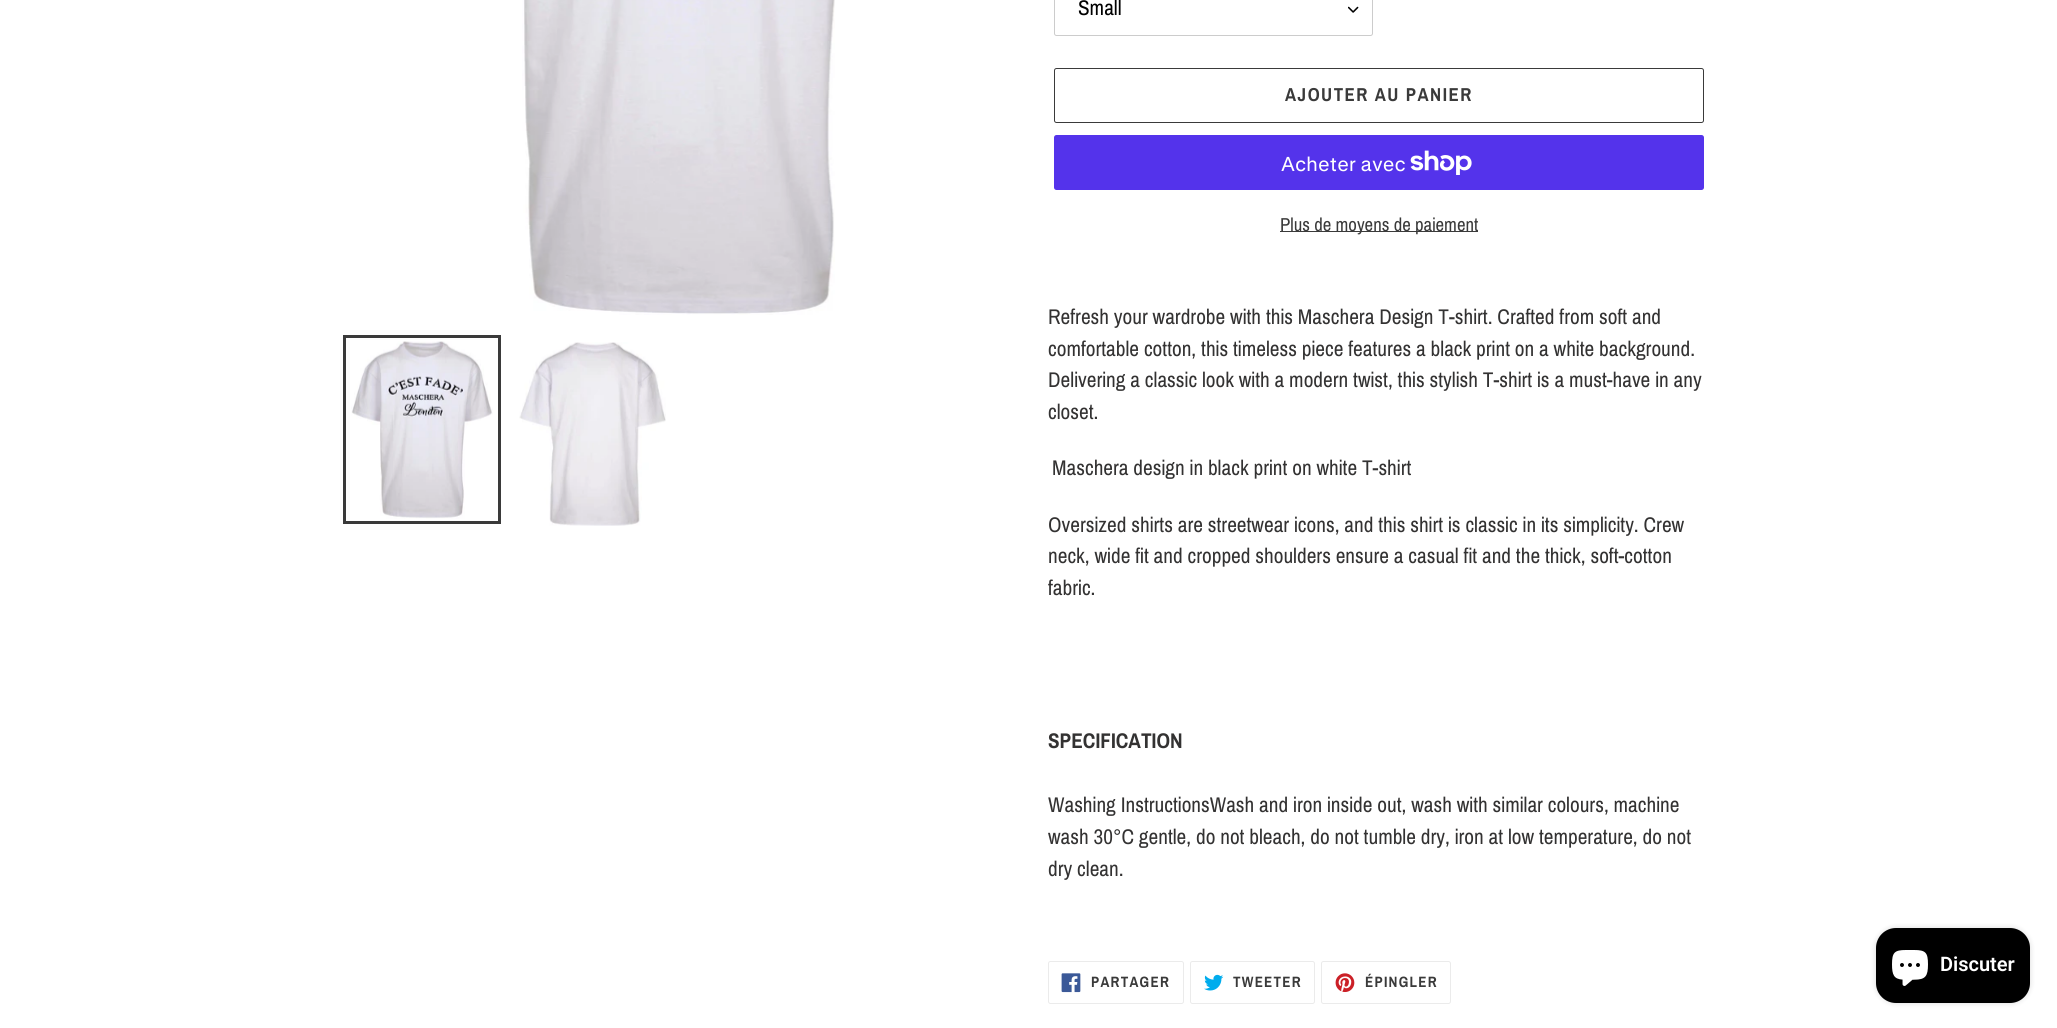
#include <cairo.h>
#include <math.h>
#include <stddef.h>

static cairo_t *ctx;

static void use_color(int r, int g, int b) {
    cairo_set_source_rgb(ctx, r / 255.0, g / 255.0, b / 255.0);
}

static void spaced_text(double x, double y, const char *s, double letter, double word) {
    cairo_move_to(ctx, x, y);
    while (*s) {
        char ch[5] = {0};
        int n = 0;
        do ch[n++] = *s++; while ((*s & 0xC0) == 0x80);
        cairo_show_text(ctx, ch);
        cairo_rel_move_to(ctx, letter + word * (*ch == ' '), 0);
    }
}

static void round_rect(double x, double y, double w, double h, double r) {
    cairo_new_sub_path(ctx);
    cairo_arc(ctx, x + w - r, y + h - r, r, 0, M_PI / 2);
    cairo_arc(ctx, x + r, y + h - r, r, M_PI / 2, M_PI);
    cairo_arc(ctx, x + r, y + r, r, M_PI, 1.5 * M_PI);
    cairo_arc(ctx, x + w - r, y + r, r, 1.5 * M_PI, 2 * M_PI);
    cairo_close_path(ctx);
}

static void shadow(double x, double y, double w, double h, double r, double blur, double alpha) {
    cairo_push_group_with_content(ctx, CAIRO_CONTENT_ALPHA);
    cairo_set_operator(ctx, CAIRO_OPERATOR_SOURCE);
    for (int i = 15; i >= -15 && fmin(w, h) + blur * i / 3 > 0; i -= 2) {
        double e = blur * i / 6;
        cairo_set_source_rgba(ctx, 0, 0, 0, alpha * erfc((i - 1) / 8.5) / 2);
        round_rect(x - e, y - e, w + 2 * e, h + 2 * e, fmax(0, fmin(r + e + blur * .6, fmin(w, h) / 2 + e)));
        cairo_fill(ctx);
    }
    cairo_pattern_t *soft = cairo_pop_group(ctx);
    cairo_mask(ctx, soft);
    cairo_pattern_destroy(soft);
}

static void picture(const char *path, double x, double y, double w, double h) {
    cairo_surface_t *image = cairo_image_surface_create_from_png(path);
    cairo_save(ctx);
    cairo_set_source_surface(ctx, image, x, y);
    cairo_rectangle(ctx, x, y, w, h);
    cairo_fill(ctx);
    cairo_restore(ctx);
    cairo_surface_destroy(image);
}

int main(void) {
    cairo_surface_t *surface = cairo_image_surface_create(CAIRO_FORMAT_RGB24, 2057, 1028);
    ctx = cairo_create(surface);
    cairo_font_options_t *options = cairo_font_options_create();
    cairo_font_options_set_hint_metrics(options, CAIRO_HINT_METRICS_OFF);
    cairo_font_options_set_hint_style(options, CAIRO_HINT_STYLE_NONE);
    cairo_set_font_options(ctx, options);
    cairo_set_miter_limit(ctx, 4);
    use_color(255, 255, 255);
    cairo_paint(ctx);
    picture("img1.png", 522, 0, 313, 315);
    cairo_rectangle(ctx, 344.5, 336.5, 155, 186);
    use_color(58, 58, 58);
    cairo_set_line_width(ctx, 3);
    cairo_stroke(ctx);
    picture("img2.png", 351, 341, 142, 178);
    picture("img3.png", 519, 342, 147, 184);
    picture("img4.png", 1348, 6, 11, 7);
    round_rect(1054.5, -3.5, 318, 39, 2);
    use_color(204, 204, 204);
    cairo_set_line_width(ctx, 1);
    cairo_stroke(ctx);
    cairo_select_font_face(ctx, "Archivo Narrow", CAIRO_FONT_SLANT_NORMAL, CAIRO_FONT_WEIGHT_NORMAL);
    cairo_set_font_size(ctx, 21.25);
    use_color(0, 0, 0);
    cairo_move_to(ctx, 1078, 15);
    cairo_show_text(ctx, "Small");
    round_rect(1054.5, 68.5, 649, 54, 2);
    use_color(58, 58, 58);
    cairo_stroke(ctx);
    cairo_select_font_face(ctx, "Archivo Narrow", CAIRO_FONT_SLANT_NORMAL, CAIRO_FONT_WEIGHT_BOLD);
    cairo_set_font_size(ctx, 18.75);
    spaced_text(1285, 101, "AJOUTER AU PANIER", 1.5, 0);
    use_color(84, 51, 235);
    round_rect(1054, 135, 650, 55, 2.5);
    cairo_fill(ctx);
    cairo_select_font_face(ctx, "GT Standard", CAIRO_FONT_SLANT_NORMAL, CAIRO_FONT_WEIGHT_NORMAL);
    cairo_set_font_size(ctx, 20);
    use_color(255, 255, 255);
    cairo_move_to(ctx, 1281, 171);
    cairo_show_text(ctx, "Acheter avec");
    picture("img5.png", 1410, 150, 62, 25);
    use_color(58, 58, 58);
    cairo_rectangle(ctx, 1280, 231, 198, 1);
    cairo_fill(ctx);
    cairo_select_font_face(ctx, "Archivo Narrow", CAIRO_FONT_SLANT_NORMAL, CAIRO_FONT_WEIGHT_NORMAL);
    cairo_set_font_size(ctx, 18.75);
    cairo_move_to(ctx, 1280, 231);
    cairo_show_text(ctx, "Plus de moyens de paiement");
    cairo_set_font_size(ctx, 21.25);
    use_color(51, 50, 50);
    cairo_move_to(ctx, 1048, 324);
    cairo_show_text(ctx, "Refresh your wardrobe with this Maschera Design T-shirt. Crafted from soft and");
    cairo_move_to(ctx, 1048, 356);
    cairo_show_text(ctx, "comfortable cotton, this timeless piece features a black print on a white background.");
    cairo_move_to(ctx, 1048, 387);
    cairo_show_text(ctx, "Delivering a classic look with a modern twist, this stylish T-shirt is a must-have in any");
    cairo_move_to(ctx, 1048, 419);
    cairo_show_text(ctx, "closet.");
    cairo_move_to(ctx, 1052, 475);
    cairo_show_text(ctx, "Maschera design in black print on white T-shirt");
    cairo_move_to(ctx, 1048, 532);
    cairo_show_text(ctx, "Oversized shirts are streetwear icons, and this shirt is classic in its simplicity. Crew");
    cairo_move_to(ctx, 1048, 563);
    cairo_show_text(ctx, "neck, wide fit and cropped shoulders ensure a casual fit and the thick, soft-cotton");
    cairo_move_to(ctx, 1048, 595);
    cairo_show_text(ctx, "fabric.");
    cairo_select_font_face(ctx, "Archivo Narrow", CAIRO_FONT_SLANT_NORMAL, CAIRO_FONT_WEIGHT_BOLD);
    cairo_move_to(ctx, 1048, 748);
    cairo_show_text(ctx, "SPECIFICATION");
    cairo_select_font_face(ctx, "Archivo Narrow", CAIRO_FONT_SLANT_NORMAL, CAIRO_FONT_WEIGHT_NORMAL);
    cairo_move_to(ctx, 1048, 812);
    cairo_show_text(ctx, "Washing InstructionsWash and iron inside out, wash with similar colours, machine");
    cairo_move_to(ctx, 1048, 844);
    cairo_show_text(ctx, "wash 30°C gentle, do not bleach, do not tumble dry, iron at low temperature, do not");
    cairo_move_to(ctx, 1048, 876);
    cairo_show_text(ctx, "dry clean.");
    round_rect(1048.5, 961.5, 135, 42, 2);
    use_color(235, 235, 235);
    cairo_stroke(ctx);
    picture("img6.png", 1061, 973, 20, 20);
    cairo_select_font_face(ctx, "Archivo Narrow", CAIRO_FONT_SLANT_NORMAL, CAIRO_FONT_WEIGHT_BOLD);
    cairo_set_font_size(ctx, 15);
    use_color(58, 58, 58);
    spaced_text(1091, 987, "PARTAGER", 1.25, 0);
    round_rect(1190.5, 961.5, 124, 42, 2);
    use_color(235, 235, 235);
    cairo_stroke(ctx);
    picture("img7.png", 1204, 974, 20, 17);
    use_color(58, 58, 58);
    spaced_text(1233, 987, "TWEETER", 1.25, 0);
    round_rect(1321.5, 961.5, 129, 42, 2);
    use_color(235, 235, 235);
    cairo_stroke(ctx);
    picture("img8.png", 1335, 973, 20, 19);
    use_color(58, 58, 58);
    spaced_text(1365, 987, "ÉPINGLER", 1.25, 0);
    use_color(0, 0, 0);
    shadow(1876, 928, 154, 75, 20, 3, 0.15);
    use_color(0, 0, 0);
    round_rect(1876, 928, 154, 75, 20);
    cairo_fill(ctx);
    picture("img9.png", 1892, 950, 36, 36);
    cairo_select_font_face(ctx, "Roboto SemiBold", CAIRO_FONT_SLANT_NORMAL, CAIRO_FONT_WEIGHT_NORMAL);
    cairo_set_font_size(ctx, 20);
    use_color(255, 255, 255);
    cairo_move_to(ctx, 1940, 971);
    cairo_show_text(ctx, "Discuter");
    cairo_surface_write_to_png(surface, "result.png");
    cairo_font_options_destroy(options);
    cairo_destroy(ctx);
    cairo_surface_destroy(surface);
    return 0;
}
